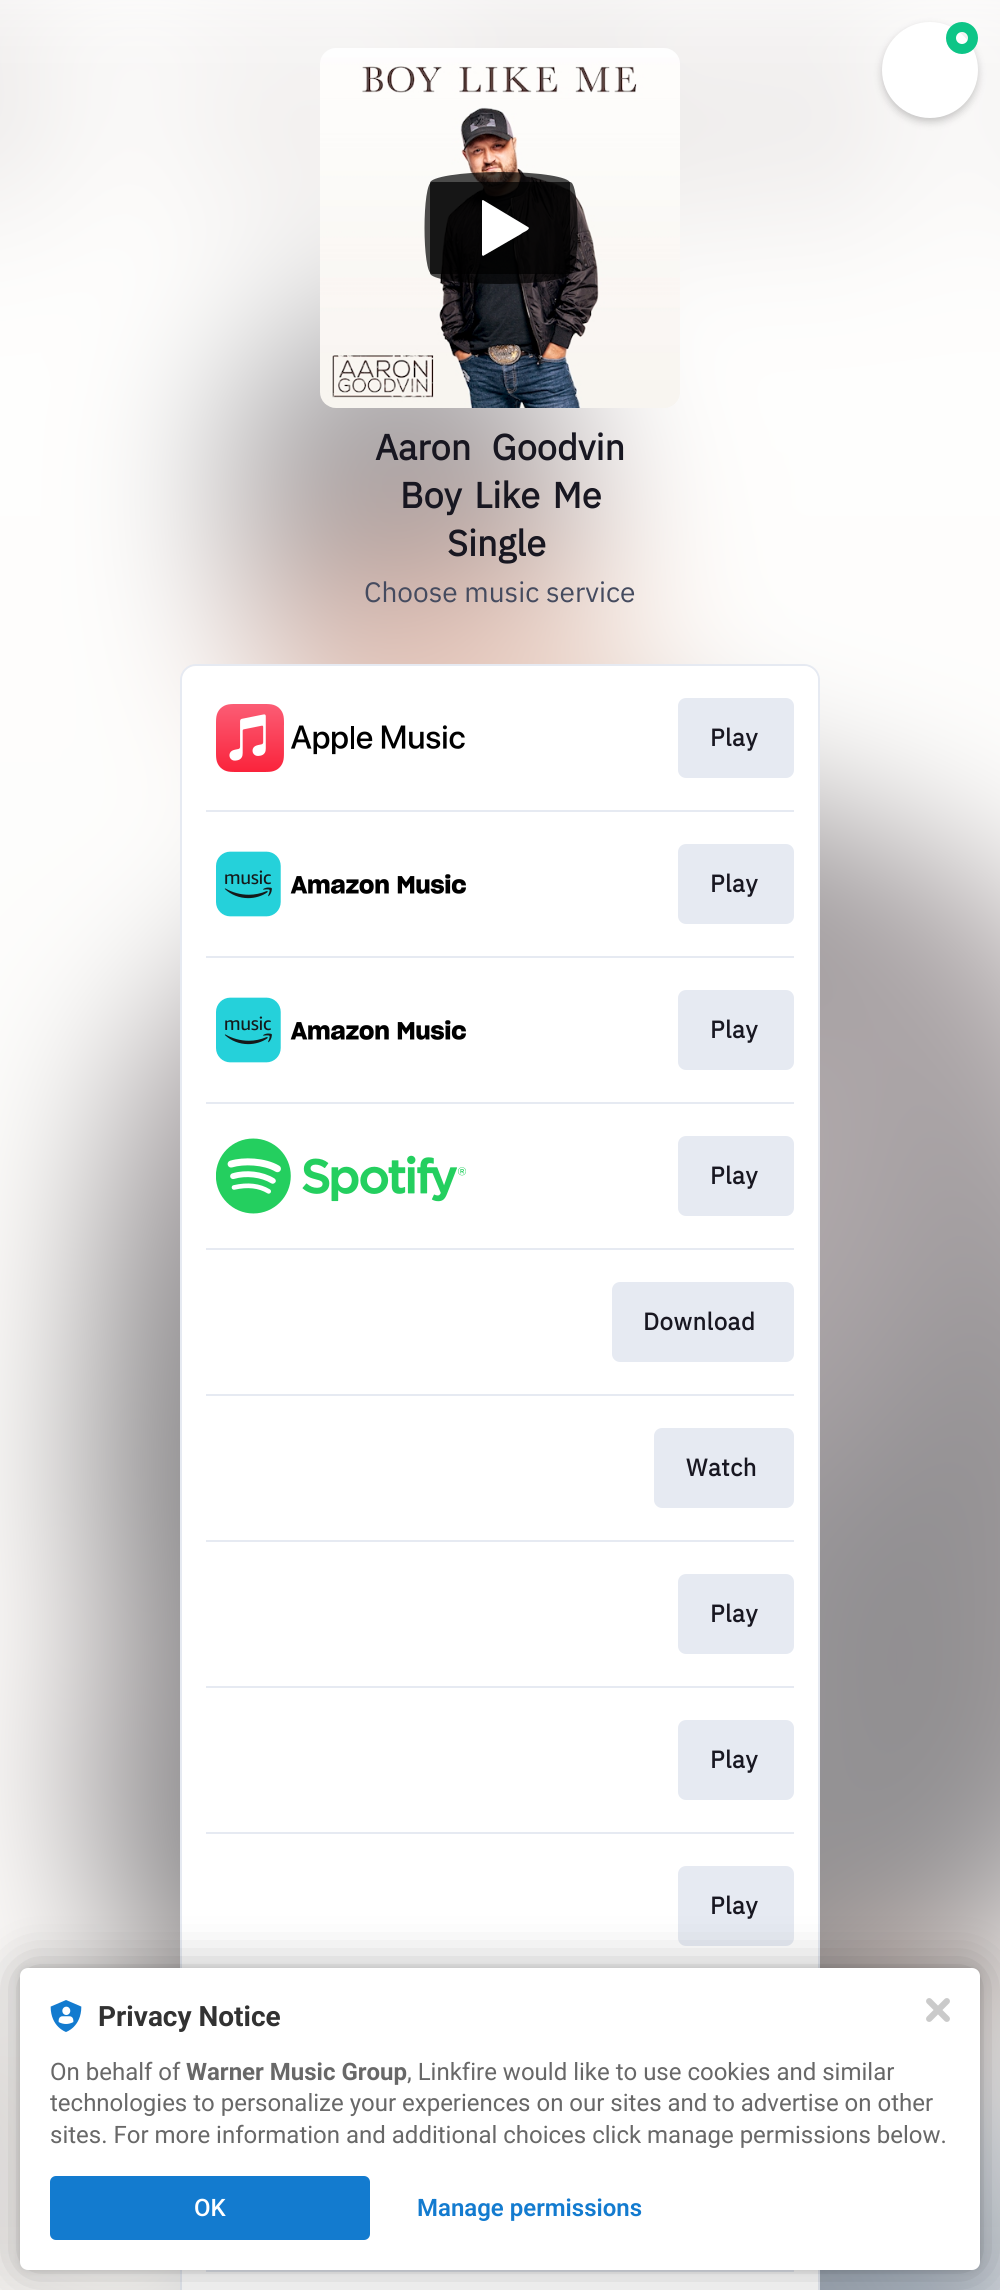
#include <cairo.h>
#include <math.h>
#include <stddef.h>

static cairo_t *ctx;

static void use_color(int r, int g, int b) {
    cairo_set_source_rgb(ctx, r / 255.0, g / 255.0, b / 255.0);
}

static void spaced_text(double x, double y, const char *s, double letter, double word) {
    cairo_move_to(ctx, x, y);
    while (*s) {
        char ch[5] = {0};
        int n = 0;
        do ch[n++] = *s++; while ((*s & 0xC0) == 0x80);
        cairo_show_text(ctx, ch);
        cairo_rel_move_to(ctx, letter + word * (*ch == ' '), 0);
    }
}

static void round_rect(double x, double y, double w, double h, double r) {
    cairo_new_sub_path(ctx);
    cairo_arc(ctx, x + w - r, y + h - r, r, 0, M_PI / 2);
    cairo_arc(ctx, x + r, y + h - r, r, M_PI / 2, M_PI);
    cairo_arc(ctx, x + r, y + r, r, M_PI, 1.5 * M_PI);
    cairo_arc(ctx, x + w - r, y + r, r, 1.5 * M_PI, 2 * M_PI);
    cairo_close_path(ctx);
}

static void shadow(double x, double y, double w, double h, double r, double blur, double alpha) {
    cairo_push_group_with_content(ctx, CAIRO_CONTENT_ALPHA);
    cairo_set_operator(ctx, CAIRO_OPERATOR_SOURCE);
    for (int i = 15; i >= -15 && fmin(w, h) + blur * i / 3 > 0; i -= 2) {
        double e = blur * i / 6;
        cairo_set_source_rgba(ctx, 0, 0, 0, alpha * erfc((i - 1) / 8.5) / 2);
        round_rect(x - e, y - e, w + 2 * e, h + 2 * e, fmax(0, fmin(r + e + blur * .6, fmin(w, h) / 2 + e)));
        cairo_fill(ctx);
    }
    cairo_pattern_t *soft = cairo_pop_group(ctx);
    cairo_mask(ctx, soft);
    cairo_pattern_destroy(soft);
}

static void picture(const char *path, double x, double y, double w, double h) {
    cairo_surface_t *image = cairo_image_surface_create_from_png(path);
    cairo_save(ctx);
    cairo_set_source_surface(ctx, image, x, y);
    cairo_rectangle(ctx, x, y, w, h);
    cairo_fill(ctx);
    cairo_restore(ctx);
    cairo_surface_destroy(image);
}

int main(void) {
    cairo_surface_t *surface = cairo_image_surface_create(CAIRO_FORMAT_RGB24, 1000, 2290);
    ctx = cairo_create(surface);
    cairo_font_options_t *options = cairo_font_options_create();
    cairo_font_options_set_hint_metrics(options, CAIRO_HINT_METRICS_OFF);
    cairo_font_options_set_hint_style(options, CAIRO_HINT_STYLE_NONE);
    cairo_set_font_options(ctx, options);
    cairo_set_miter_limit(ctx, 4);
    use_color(255, 255, 255);
    cairo_paint(ctx);
    picture("img1.png", 0, 0, 1000, 2290);
    use_color(0, 0, 0);
    shadow(882, 26, 96, 96, 48, 4, 0.2);
    use_color(255, 255, 255);
    cairo_arc(ctx, 930, 70, 48, 0, 2 * M_PI);
    cairo_fill(ctx);
    cairo_arc(ctx, 962, 38, 11, 0, 2 * M_PI);
    use_color(13, 197, 135);
    cairo_set_line_width(ctx, 10);
    cairo_stroke(ctx);
    picture("img2.png", 320, 48, 360, 360);
    cairo_set_source_rgba(ctx, 0, 0, 0, 0.7);
    cairo_new_path(ctx);
    cairo_move_to(ctx, 500, 172);
    cairo_curve_to(ctx, 539, 172, 570, 177, 570, 183);
    cairo_line_to(ctx, 570, 273);
    cairo_curve_to(ctx, 570, 279, 539, 284, 500, 284);
    cairo_curve_to(ctx, 461, 284, 430, 279, 430, 273);
    cairo_line_to(ctx, 430, 183);
    cairo_curve_to(ctx, 430, 177, 461, 172, 500, 172);
    cairo_close_path(ctx);
    cairo_fill(ctx);
    cairo_new_path(ctx);
    cairo_move_to(ctx, 432, 182);
    cairo_line_to(ctx, 570, 182);
    cairo_curve_to(ctx, 578, 182, 578, 231, 578, 237);
    cairo_line_to(ctx, 576, 261);
    cairo_curve_to(ctx, 575, 263, 574, 274, 570, 274);
    cairo_line_to(ctx, 432, 274);
    cairo_curve_to(ctx, 422, 274, 422, 182, 432, 182);
    cairo_close_path(ctx);
    cairo_fill(ctx);
    use_color(255, 255, 255);
    cairo_new_path(ctx);
    cairo_move_to(ctx, 528, 227);
    cairo_line_to(ctx, 483, 200);
    cairo_curve_to(ctx, 482, 200, 482, 201, 482, 201);
    cairo_line_to(ctx, 482, 255);
    cairo_line_to(ctx, 483, 256);
    cairo_line_to(ctx, 521, 234);
    cairo_curve_to(ctx, 523, 232, 528, 231, 529, 228);
    cairo_close_path(ctx);
    cairo_fill(ctx);
    cairo_select_font_face(ctx, "IBM Plex Sans", CAIRO_FONT_SLANT_NORMAL, CAIRO_FONT_WEIGHT_BOLD);
    cairo_set_font_size(ctx, 36);
    use_color(24, 23, 33);
    spaced_text(375, 460, "Aaron Goodvin", 0, 12);
    spaced_text(400, 508, "Boy Like Me", 0, 4);
    cairo_move_to(ctx, 447, 556);
    cairo_show_text(ctx, "Single");
    cairo_select_font_face(ctx, "IBM Plex Sans", CAIRO_FONT_SLANT_NORMAL, CAIRO_FONT_WEIGHT_NORMAL);
    cairo_set_font_size(ctx, 28);
    use_color(69, 75, 95);
    cairo_move_to(ctx, 364, 602);
    cairo_show_text(ctx, "Choose music service");
    round_rect(181, 665, 638, 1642, 15);
    use_color(230, 234, 242);
    cairo_set_line_width(ctx, 2);
    cairo_stroke(ctx);
    use_color(255, 255, 255);
    round_rect(182, 666, 636, 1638, 14);
    cairo_fill(ctx);
    picture("img3.png", 216, 704, 249, 68);
    use_color(230, 234, 242);
    round_rect(678, 698, 116, 80, 8);
    cairo_fill(ctx);
    cairo_select_font_face(ctx, "IBM Plex Sans", CAIRO_FONT_SLANT_NORMAL, CAIRO_FONT_WEIGHT_BOLD);
    cairo_set_font_size(ctx, 24);
    use_color(24, 23, 33);
    spaced_text(710, 746, "Play", 0.5, 0);
    use_color(230, 234, 242);
    cairo_rectangle(ctx, 206, 810, 588, 2);
    cairo_fill(ctx);
    picture("img4.png", 216, 851, 250, 66);
    round_rect(678, 844, 116, 80, 8);
    cairo_fill(ctx);
    use_color(24, 23, 33);
    spaced_text(710, 892, "Play", 0.5, 0);
    use_color(230, 234, 242);
    cairo_rectangle(ctx, 206, 956, 588, 2);
    cairo_fill(ctx);
    picture("img4.png", 216, 997, 250, 66);
    round_rect(678, 990, 116, 80, 8);
    cairo_fill(ctx);
    use_color(24, 23, 33);
    spaced_text(710, 1038, "Play", 0.5, 0);
    use_color(230, 234, 242);
    cairo_rectangle(ctx, 206, 1102, 588, 2);
    cairo_fill(ctx);
    picture("img5.png", 216, 1138, 250, 76);
    round_rect(678, 1136, 116, 80, 8);
    cairo_fill(ctx);
    use_color(24, 23, 33);
    spaced_text(710, 1184, "Play", 0.5, 0);
    use_color(230, 234, 242);
    cairo_rectangle(ctx, 206, 1248, 588, 2);
    cairo_fill(ctx);
    round_rect(612, 1282, 182, 80, 8);
    cairo_fill(ctx);
    use_color(24, 23, 33);
    spaced_text(643, 1330, "Download", 0.5, 0);
    use_color(230, 234, 242);
    cairo_rectangle(ctx, 206, 1394, 588, 2);
    cairo_fill(ctx);
    round_rect(654, 1428, 140, 80, 8);
    cairo_fill(ctx);
    use_color(24, 23, 33);
    spaced_text(686, 1476, "Watch", 0.5, 0);
    use_color(230, 234, 242);
    cairo_rectangle(ctx, 206, 1540, 588, 2);
    cairo_fill(ctx);
    round_rect(678, 1574, 116, 80, 8);
    cairo_fill(ctx);
    use_color(24, 23, 33);
    spaced_text(710, 1622, "Play", 0.5, 0);
    use_color(230, 234, 242);
    cairo_rectangle(ctx, 206, 1686, 588, 2);
    cairo_fill(ctx);
    round_rect(678, 1720, 116, 80, 8);
    cairo_fill(ctx);
    use_color(24, 23, 33);
    spaced_text(710, 1768, "Play", 0.5, 0);
    use_color(230, 234, 242);
    cairo_rectangle(ctx, 206, 1832, 588, 2);
    cairo_fill(ctx);
    round_rect(678, 1866, 116, 80, 8);
    cairo_fill(ctx);
    use_color(24, 23, 33);
    spaced_text(710, 1914, "Play", 0.5, 0);
    use_color(230, 234, 242);
    cairo_rectangle(ctx, 206, 2270, 588, 2);
    cairo_fill(ctx);
    use_color(0, 0, 0);
    shadow(20, 1968, 960, 302, 8, 4, 0.12);
    shadow(20, 1968, 960, 302, 8, 24, 0.3);
    use_color(255, 255, 255);
    round_rect(20, 1968, 960, 302, 8);
    cairo_fill(ctx);
    picture("img6.png", 926, 1998, 24, 24);
    picture("img7.png", 50, 2000, 32, 32);
    cairo_select_font_face(ctx, "Roboto", CAIRO_FONT_SLANT_NORMAL, CAIRO_FONT_WEIGHT_BOLD);
    cairo_set_font_size(ctx, 28);
    use_color(50, 50, 50);
    cairo_move_to(ctx, 98, 2026);
    cairo_show_text(ctx, "Privacy Notice");
    cairo_select_font_face(ctx, "Roboto", CAIRO_FONT_SLANT_NORMAL, CAIRO_FONT_WEIGHT_NORMAL);
    cairo_set_font_size(ctx, 24);
    use_color(104, 104, 104);
    cairo_move_to(ctx, 50, 2080);
    cairo_show_text(ctx, "On behalf of");
    cairo_select_font_face(ctx, "Roboto", CAIRO_FONT_SLANT_NORMAL, CAIRO_FONT_WEIGHT_BOLD);
    cairo_move_to(ctx, 186, 2080);
    cairo_show_text(ctx, "Warner Music Group");
    cairo_select_font_face(ctx, "Roboto", CAIRO_FONT_SLANT_NORMAL, CAIRO_FONT_WEIGHT_NORMAL);
    cairo_move_to(ctx, 407, 2080);
    cairo_show_text(ctx, ", Linkfire would like to use cookies and similar");
    cairo_move_to(ctx, 50, 2111);
    cairo_show_text(ctx, "technologies to personalize your experiences on our sites and to advertise on other");
    cairo_move_to(ctx, 50, 2143);
    cairo_show_text(ctx, "sites. For more information and additional choices click manage permissions below.");
    use_color(19, 123, 207);
    round_rect(50, 2176, 320, 64, 6);
    cairo_fill(ctx);
    cairo_select_font_face(ctx, "Roboto Medium", CAIRO_FONT_SLANT_NORMAL, CAIRO_FONT_WEIGHT_NORMAL);
    use_color(255, 255, 255);
    cairo_move_to(ctx, 194, 2216);
    cairo_show_text(ctx, "OK");
    cairo_select_font_face(ctx, "Roboto SemiBold", CAIRO_FONT_SLANT_NORMAL, CAIRO_FONT_WEIGHT_NORMAL);
    use_color(19, 123, 207);
    cairo_move_to(ctx, 417, 2216);
    cairo_show_text(ctx, "Manage permissions");
    cairo_surface_write_to_png(surface, "result.png");
    cairo_font_options_destroy(options);
    cairo_destroy(ctx);
    cairo_surface_destroy(surface);
    return 0;
}
